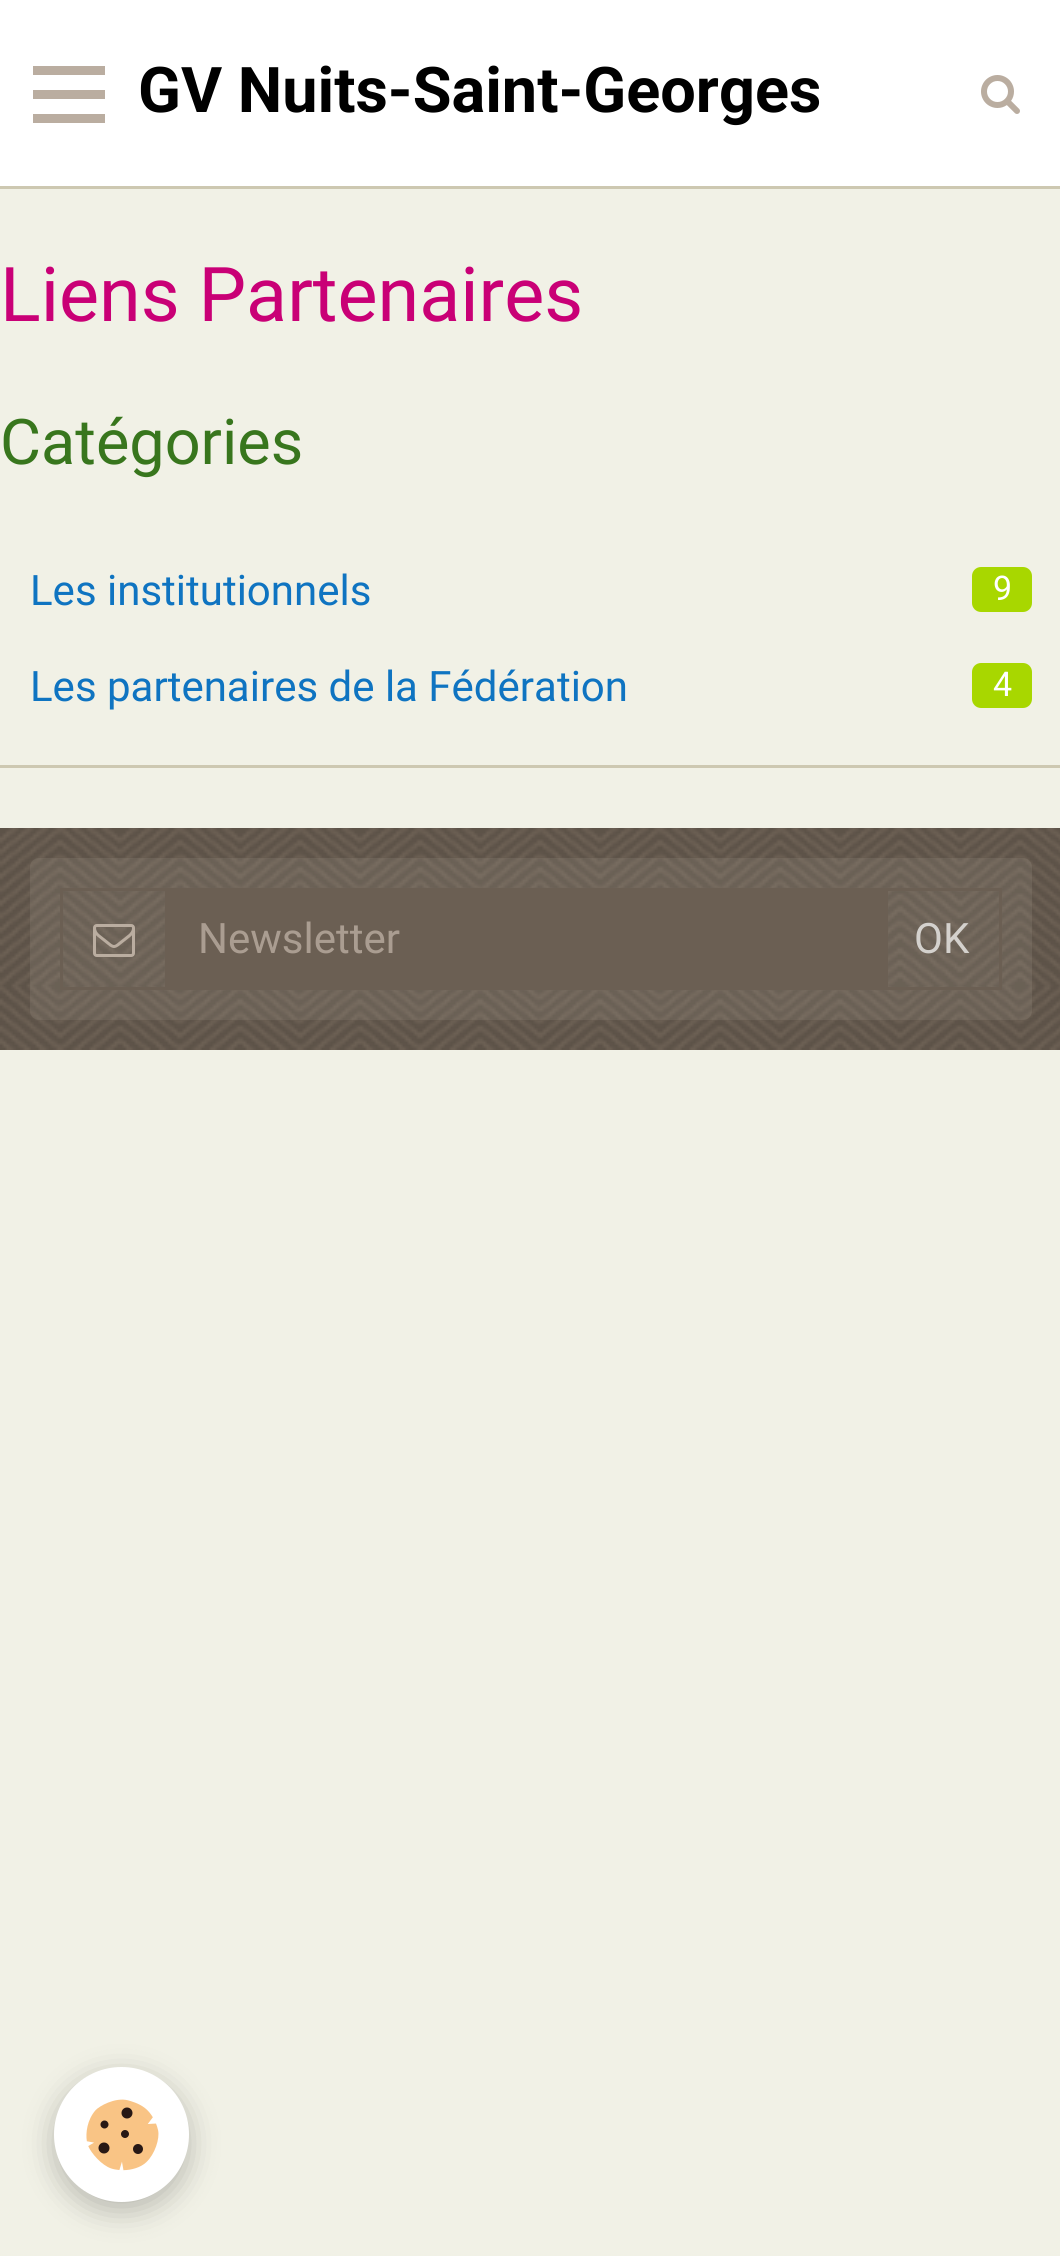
#include <cairo.h>
#include <math.h>
#include <stddef.h>

static cairo_t *ctx;

static void use_color(int r, int g, int b) {
    cairo_set_source_rgb(ctx, r / 255.0, g / 255.0, b / 255.0);
}

static void round_rect(double x, double y, double w, double h, double r) {
    cairo_new_sub_path(ctx);
    cairo_arc(ctx, x + w - r, y + h - r, r, 0, M_PI / 2);
    cairo_arc(ctx, x + r, y + h - r, r, M_PI / 2, M_PI);
    cairo_arc(ctx, x + r, y + r, r, M_PI, 1.5 * M_PI);
    cairo_arc(ctx, x + w - r, y + r, r, 1.5 * M_PI, 2 * M_PI);
    cairo_close_path(ctx);
}

static void shadow(double x, double y, double w, double h, double r, double blur, double alpha) {
    cairo_push_group_with_content(ctx, CAIRO_CONTENT_ALPHA);
    cairo_set_operator(ctx, CAIRO_OPERATOR_SOURCE);
    for (int i = 15; i >= -15 && fmin(w, h) + blur * i / 3 > 0; i -= 2) {
        double e = blur * i / 6;
        cairo_set_source_rgba(ctx, 0, 0, 0, alpha * erfc((i - 1) / 8.5) / 2);
        round_rect(x - e, y - e, w + 2 * e, h + 2 * e, fmax(0, fmin(r + e + blur * .6, fmin(w, h) / 2 + e)));
        cairo_fill(ctx);
    }
    cairo_pattern_t *soft = cairo_pop_group(ctx);
    cairo_mask(ctx, soft);
    cairo_pattern_destroy(soft);
}

static void picture(const char *path, double x, double y, double w, double h) {
    cairo_surface_t *image = cairo_image_surface_create_from_png(path);
    cairo_save(ctx);
    cairo_set_source_surface(ctx, image, x, y);
    cairo_rectangle(ctx, x, y, w, h);
    cairo_fill(ctx);
    cairo_restore(ctx);
    cairo_surface_destroy(image);
}

int main(void) {
    cairo_surface_t *surface = cairo_image_surface_create(CAIRO_FORMAT_RGB24, 1060, 2256);
    ctx = cairo_create(surface);
    cairo_font_options_t *options = cairo_font_options_create();
    cairo_font_options_set_hint_metrics(options, CAIRO_HINT_METRICS_OFF);
    cairo_font_options_set_hint_style(options, CAIRO_HINT_STYLE_NONE);
    cairo_set_font_options(ctx, options);
    cairo_set_miter_limit(ctx, 4);
    use_color(241, 241, 230);
    cairo_paint(ctx);
    use_color(255, 255, 255);
    cairo_rectangle(ctx, 0, 0, 1060, 186);
    cairo_fill(ctx);
    use_color(205, 200, 177);
    cairo_rectangle(ctx, 0, 186, 1060, 3);
    cairo_fill(ctx);
    use_color(186, 173, 160);
    cairo_rectangle(ctx, 33, 90, 72, 9);
    cairo_fill(ctx);
    cairo_rectangle(ctx, 33, 66, 72, 9);
    cairo_fill(ctx);
    cairo_rectangle(ctx, 33, 114, 72, 9);
    cairo_fill(ctx);
    cairo_select_font_face(ctx, "Roboto", CAIRO_FONT_SLANT_NORMAL, CAIRO_FONT_WEIGHT_BOLD);
    cairo_set_font_size(ctx, 63);
    use_color(0, 0, 0);
    cairo_move_to(ctx, 138, 112);
    cairo_show_text(ctx, "GV Nuits-Saint-Georges");
    picture("img1.png", 981, 75, 39, 39);
    cairo_select_font_face(ctx, "Roboto", CAIRO_FONT_SLANT_NORMAL, CAIRO_FONT_WEIGHT_NORMAL);
    cairo_set_font_size(ctx, 75.5);
    use_color(201, 0, 118);
    cairo_move_to(ctx, 0, 321);
    cairo_show_text(ctx, "Liens Partenaires");
    use_color(205, 200, 177);
    cairo_rectangle(ctx, 0, 765, 1060, 3);
    cairo_fill(ctx);
    cairo_set_font_size(ctx, 63);
    use_color(56, 118, 29);
    cairo_move_to(ctx, 0, 464);
    cairo_show_text(ctx, "Catégories");
    cairo_set_font_size(ctx, 42);
    use_color(15, 116, 193);
    cairo_move_to(ctx, 30, 605);
    cairo_show_text(ctx, "Les institutionnels");
    use_color(168, 215, 0);
    round_rect(972, 567, 60, 45, 9);
    cairo_fill(ctx);
    cairo_set_font_size(ctx, 34);
    use_color(255, 255, 255);
    cairo_move_to(ctx, 993, 600);
    cairo_show_text(ctx, "9");
    cairo_set_font_size(ctx, 42);
    use_color(15, 116, 193);
    cairo_move_to(ctx, 30, 701);
    cairo_show_text(ctx, "Les partenaires de la Fédération");
    use_color(168, 215, 0);
    round_rect(972, 663, 60, 45, 9);
    cairo_fill(ctx);
    cairo_set_font_size(ctx, 34);
    use_color(255, 255, 255);
    cairo_move_to(ctx, 993, 696);
    cairo_show_text(ctx, "4");
    use_color(107, 95, 83);
    cairo_rectangle(ctx, 0, 828, 1060, 222);
    cairo_fill(ctx);
    picture("img2.png", 0, 828, 1060, 222);
    cairo_set_source_rgba(ctx, 0.729, 0.678, 0.627, 0.15);
    round_rect(30, 858, 1002, 162, 9);
    cairo_fill(ctx);
    cairo_rectangle(ctx, 61.5, 889.5, 105, 99);
    use_color(107, 95, 83);
    cairo_set_line_width(ctx, 3);
    cairo_stroke(ctx);
    picture("img3.png", 93, 924, 42, 33);
    cairo_rectangle(ctx, 168, 888, 720, 102);
    cairo_fill(ctx);
    cairo_set_font_size(ctx, 42);
    use_color(170, 157, 145);
    cairo_move_to(ctx, 198, 953);
    cairo_show_text(ctx, "Newsletter");
    use_color(107, 95, 83);
    cairo_rectangle(ctx, 885, 888, 117, 3);
    cairo_fill(ctx);
    cairo_rectangle(ctx, 999, 888, 3, 102);
    cairo_fill(ctx);
    cairo_rectangle(ctx, 885, 987, 117, 3);
    cairo_fill(ctx);
    use_color(212, 209, 205);
    cairo_move_to(ctx, 914, 953);
    cairo_show_text(ctx, "OK");
    use_color(0, 0, 0);
    shadow(54, 2076, 135, 135, 67.5, 15, 0.24);
    use_color(255, 255, 255);
    cairo_arc(ctx, 121.5, 2134.5, 67.5, 0, 2 * M_PI);
    cairo_fill(ctx);
    picture("img4.png", 86, 2099, 73, 72);
    cairo_surface_write_to_png(surface, "result.png");
    cairo_font_options_destroy(options);
    cairo_destroy(ctx);
    cairo_surface_destroy(surface);
    return 0;
}
